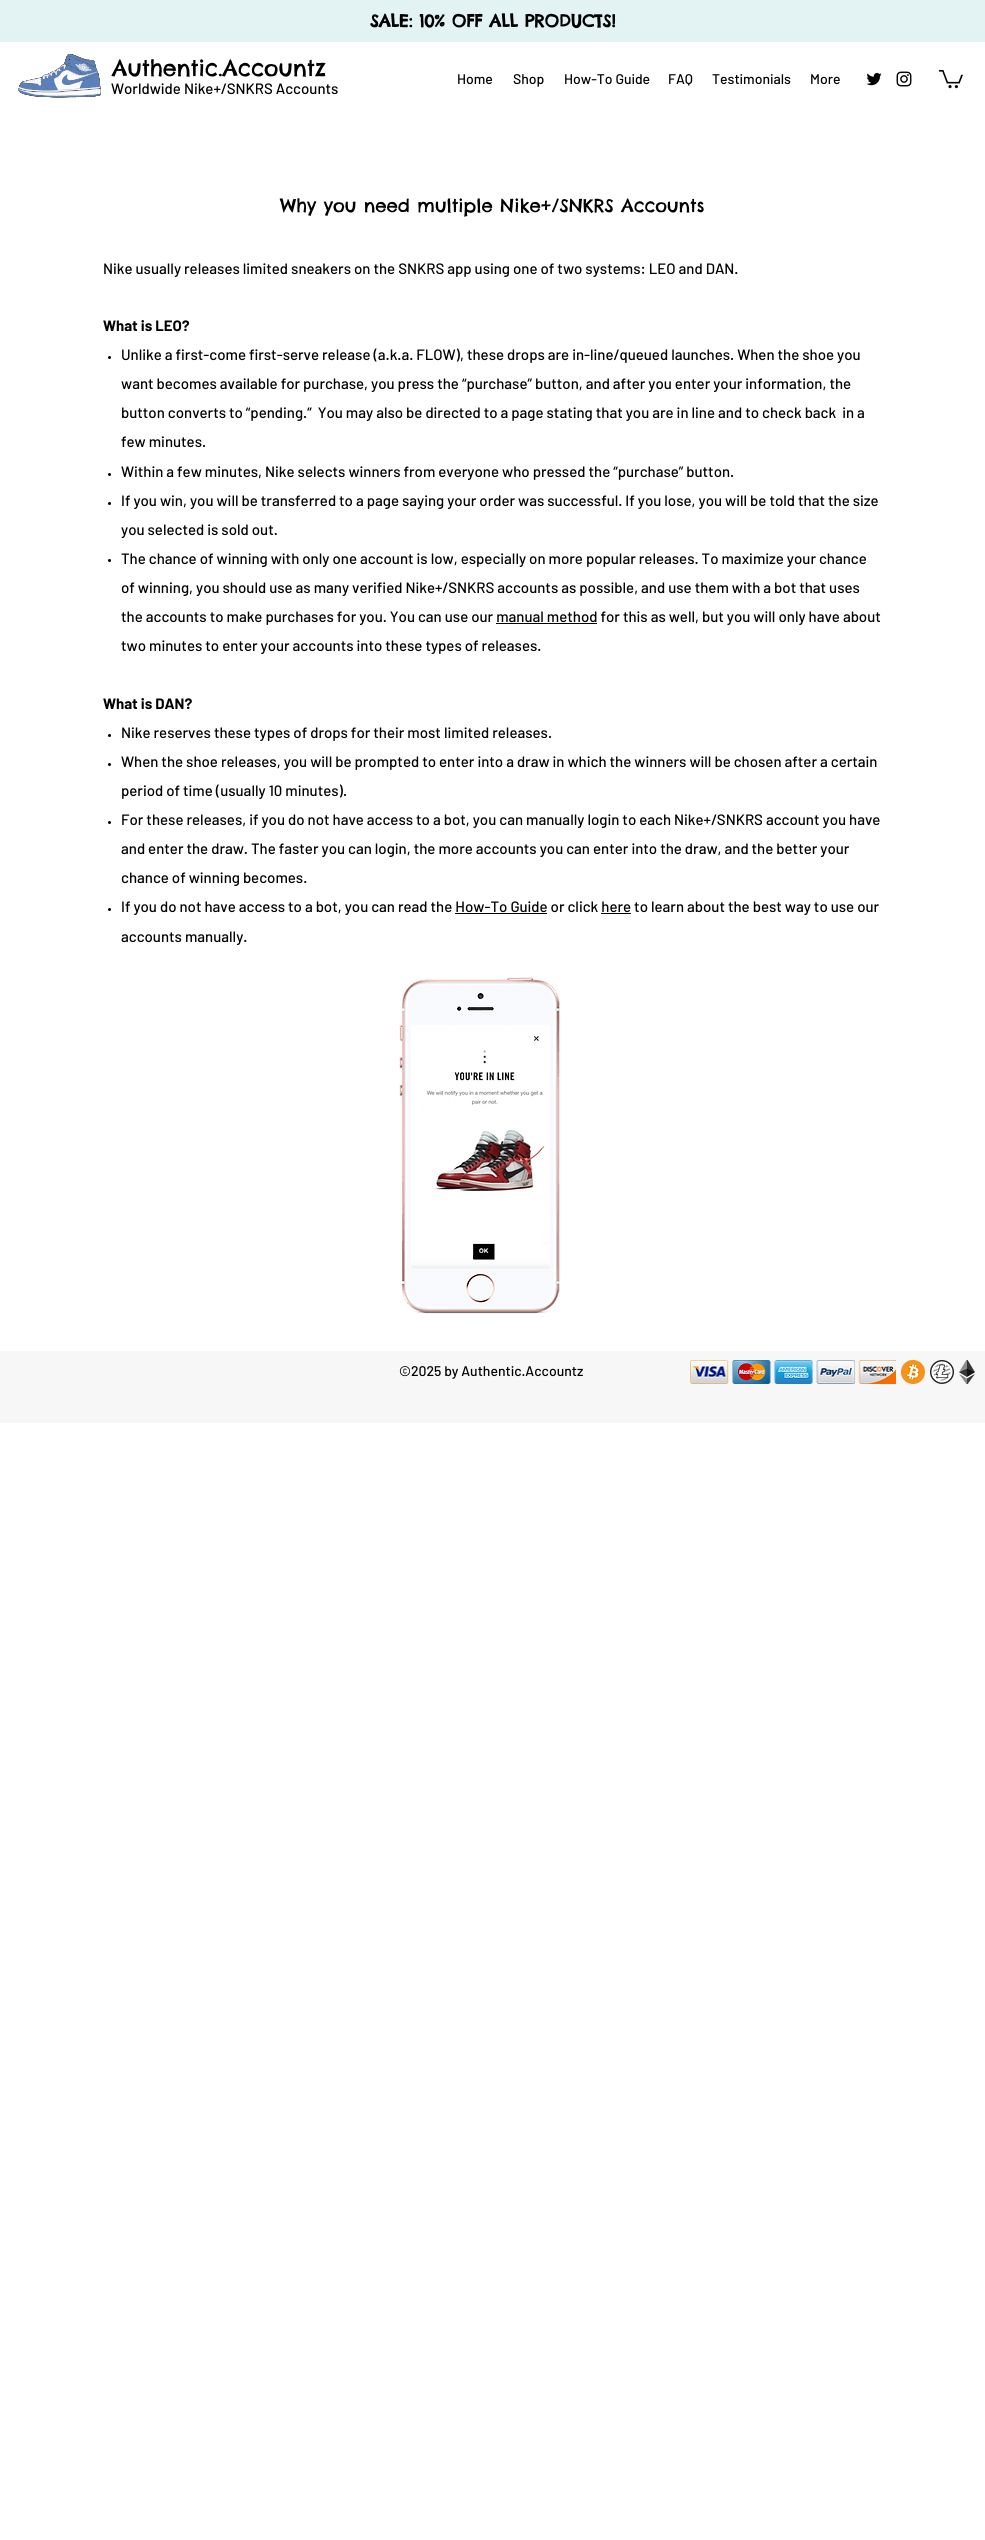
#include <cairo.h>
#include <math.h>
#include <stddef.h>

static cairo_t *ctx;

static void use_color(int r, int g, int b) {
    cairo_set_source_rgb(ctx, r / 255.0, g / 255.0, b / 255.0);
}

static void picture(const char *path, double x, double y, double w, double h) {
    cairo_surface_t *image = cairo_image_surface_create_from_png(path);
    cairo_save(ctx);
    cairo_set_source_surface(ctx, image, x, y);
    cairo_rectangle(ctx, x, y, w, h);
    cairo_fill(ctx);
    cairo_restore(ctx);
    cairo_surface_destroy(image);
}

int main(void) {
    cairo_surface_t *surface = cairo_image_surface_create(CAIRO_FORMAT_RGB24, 985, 2540);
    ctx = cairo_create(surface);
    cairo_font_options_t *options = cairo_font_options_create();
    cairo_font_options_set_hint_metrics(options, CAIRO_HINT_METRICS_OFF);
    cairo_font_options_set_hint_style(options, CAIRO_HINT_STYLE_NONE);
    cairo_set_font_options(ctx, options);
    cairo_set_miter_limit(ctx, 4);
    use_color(255, 255, 255);
    cairo_paint(ctx);
    use_color(227, 242, 243);
    cairo_rectangle(ctx, 0, 0, 985, 42);
    cairo_fill(ctx);
    cairo_select_font_face(ctx, "Chelsea Market", CAIRO_FONT_SLANT_NORMAL, CAIRO_FONT_WEIGHT_BOLD);
    cairo_set_font_size(ctx, 17);
    use_color(0, 0, 0);
    cairo_move_to(ctx, 370, 27);
    cairo_show_text(ctx, "SALE: 10% OFF ALL PRODUCTS!");
    picture("img1.png", 18, 54, 83, 44);
    cairo_select_font_face(ctx, "Chelsea Market", CAIRO_FONT_SLANT_NORMAL, CAIRO_FONT_WEIGHT_NORMAL);
    cairo_set_font_size(ctx, 22);
    cairo_move_to(ctx, 112, 76);
    cairo_show_text(ctx, "Authentic.Accountz");
    cairo_select_font_face(ctx, "Barlow Medium", CAIRO_FONT_SLANT_NORMAL, CAIRO_FONT_WEIGHT_NORMAL);
    cairo_set_font_size(ctx, 15);
    cairo_move_to(ctx, 111, 94);
    cairo_show_text(ctx, "Worldwide Nike+/SNKRS Accounts");
    cairo_set_font_size(ctx, 14);
    cairo_move_to(ctx, 457, 84);
    cairo_show_text(ctx, "Home");
    cairo_move_to(ctx, 513, 84);
    cairo_show_text(ctx, "Shop");
    cairo_move_to(ctx, 564, 84);
    cairo_show_text(ctx, "How-To Guide");
    cairo_move_to(ctx, 668, 84);
    cairo_show_text(ctx, "FAQ");
    cairo_move_to(ctx, 712, 84);
    cairo_show_text(ctx, "Testimonials");
    cairo_move_to(ctx, 810, 84);
    cairo_show_text(ctx, "More");
    picture("img2.png", 866, 72, 16, 14);
    picture("img3.png", 896, 71, 16, 16);
    picture("img4.png", 939, 70, 24, 19);
    cairo_select_font_face(ctx, "Chelsea Market", CAIRO_FONT_SLANT_NORMAL, CAIRO_FONT_WEIGHT_NORMAL);
    cairo_set_font_size(ctx, 18);
    cairo_move_to(ctx, 280, 212);
    cairo_show_text(ctx, "Why you need multiple Nike+/SNKRS Accounts");
    cairo_select_font_face(ctx, "Barlow Medium", CAIRO_FONT_SLANT_NORMAL, CAIRO_FONT_WEIGHT_NORMAL);
    cairo_set_font_size(ctx, 15);
    cairo_move_to(ctx, 103, 274);
    cairo_show_text(ctx, "Nike usually releases limited sneakers on the SNKRS app using one of two systems: LEO and DAN.");
    cairo_select_font_face(ctx, "Barlow", CAIRO_FONT_SLANT_NORMAL, CAIRO_FONT_WEIGHT_BOLD);
    cairo_move_to(ctx, 103, 331);
    cairo_show_text(ctx, "What is LEO?");
    cairo_new_path(ctx);
    cairo_arc(ctx, 109.5, 357.5, 1.5, 0, 2 * M_PI);
    cairo_fill(ctx);
    cairo_select_font_face(ctx, "Barlow Medium", CAIRO_FONT_SLANT_NORMAL, CAIRO_FONT_WEIGHT_NORMAL);
    cairo_move_to(ctx, 121, 360);
    cairo_show_text(ctx, "Unlike a first-come first-serve release (a.k.a. FLOW), these drops are in-line/queued launches. When the shoe you");
    cairo_move_to(ctx, 121, 389);
    cairo_show_text(ctx, "want becomes available for purchase, you press the “purchase” button, and after you enter your information, the");
    cairo_move_to(ctx, 121, 418);
    cairo_show_text(ctx, "button converts to “pending.”  You may also be directed to a page stating that you are in line and to check back  in a");
    cairo_move_to(ctx, 121, 447);
    cairo_show_text(ctx, "few minutes.");
    cairo_new_path(ctx);
    cairo_arc(ctx, 109.5, 474.5, 1.5, 0, 2 * M_PI);
    cairo_fill(ctx);
    cairo_move_to(ctx, 121, 477);
    cairo_show_text(ctx, "Within a few minutes, Nike selects winners from everyone who pressed the “purchase” button.");
    cairo_new_path(ctx);
    cairo_arc(ctx, 109.5, 503.5, 1.5, 0, 2 * M_PI);
    cairo_fill(ctx);
    cairo_move_to(ctx, 121, 506);
    cairo_show_text(ctx, "If you win, you will be transferred to a page saying your order was successful. If you lose, you will be told that the size");
    cairo_move_to(ctx, 121, 535);
    cairo_show_text(ctx, "you selected is sold out.");
    cairo_new_path(ctx);
    cairo_arc(ctx, 109.5, 560.5, 1.5, 0, 2 * M_PI);
    cairo_fill(ctx);
    cairo_move_to(ctx, 121, 564);
    cairo_show_text(ctx, "The chance of winning with only one account is low, especially on more popular releases. To maximize your chance");
    cairo_move_to(ctx, 121, 593);
    cairo_show_text(ctx, "of winning, you should use as many verified Nike+/SNKRS accounts as possible, and use them with a bot that uses");
    cairo_move_to(ctx, 121, 622);
    cairo_show_text(ctx, "the accounts to make purchases for you. You can use our manual method for this as well, but you will only have about");
    cairo_rectangle(ctx, 496, 623, 101, 1);
    cairo_fill(ctx);
    cairo_move_to(ctx, 121, 651);
    cairo_show_text(ctx, "two minutes to enter your accounts into these types of releases.");
    cairo_select_font_face(ctx, "Barlow", CAIRO_FONT_SLANT_NORMAL, CAIRO_FONT_WEIGHT_BOLD);
    cairo_move_to(ctx, 103, 709);
    cairo_show_text(ctx, "What is DAN?");
    cairo_new_path(ctx);
    cairo_arc(ctx, 109.5, 735.5, 1.5, 0, 2 * M_PI);
    cairo_fill(ctx);
    cairo_select_font_face(ctx, "Barlow Medium", CAIRO_FONT_SLANT_NORMAL, CAIRO_FONT_WEIGHT_NORMAL);
    cairo_move_to(ctx, 121, 738);
    cairo_show_text(ctx, "Nike reserves these types of drops for their most limited releases.");
    cairo_new_path(ctx);
    cairo_arc(ctx, 109.5, 764.5, 1.5, 0, 2 * M_PI);
    cairo_fill(ctx);
    cairo_move_to(ctx, 121, 767);
    cairo_show_text(ctx, "When the shoe releases, you will be prompted to enter into a draw in which the winners will be chosen after a certain");
    cairo_move_to(ctx, 121, 796);
    cairo_show_text(ctx, "period of time (usually 10 minutes).");
    cairo_new_path(ctx);
    cairo_arc(ctx, 109.5, 822.5, 1.5, 0, 2 * M_PI);
    cairo_fill(ctx);
    cairo_move_to(ctx, 121, 825);
    cairo_show_text(ctx, "For these releases, if you do not have access to a bot, you can manually login to each Nike+/SNKRS account you have");
    cairo_move_to(ctx, 121, 854);
    cairo_show_text(ctx, "and enter the draw. The faster you can login, the more accounts you can enter into the draw, and the better your");
    cairo_move_to(ctx, 121, 883);
    cairo_show_text(ctx, "chance of winning becomes.");
    cairo_new_path(ctx);
    cairo_arc(ctx, 109.5, 909.5, 1.5, 0, 2 * M_PI);
    cairo_fill(ctx);
    cairo_move_to(ctx, 121, 912);
    cairo_show_text(ctx, "If you do not have access to a bot, you can read the How-To Guide or click here to learn about the best way to use our");
    cairo_rectangle(ctx, 455, 913, 92, 1);
    cairo_fill(ctx);
    cairo_rectangle(ctx, 601, 913, 30, 1);
    cairo_fill(ctx);
    cairo_move_to(ctx, 121, 942);
    cairo_show_text(ctx, "accounts manually.");
    picture("img5.png", 399, 977, 161, 337);
    use_color(247, 247, 247);
    cairo_rectangle(ctx, 0, 1351, 985, 72);
    cairo_fill(ctx);
    cairo_set_font_size(ctx, 14);
    use_color(0, 0, 0);
    cairo_move_to(ctx, 399, 1376);
    cairo_show_text(ctx, "©2025 by Authentic.Accountz");
    picture("img6.png", 690, 1360, 206, 24);
    picture("img7.png", 901, 1360, 24, 24);
    picture("img8.png", 930, 1360, 24, 24);
    picture("img9.png", 959, 1360, 16, 24);
    cairo_surface_write_to_png(surface, "result.png");
    cairo_font_options_destroy(options);
    cairo_destroy(ctx);
    cairo_surface_destroy(surface);
    return 0;
}
